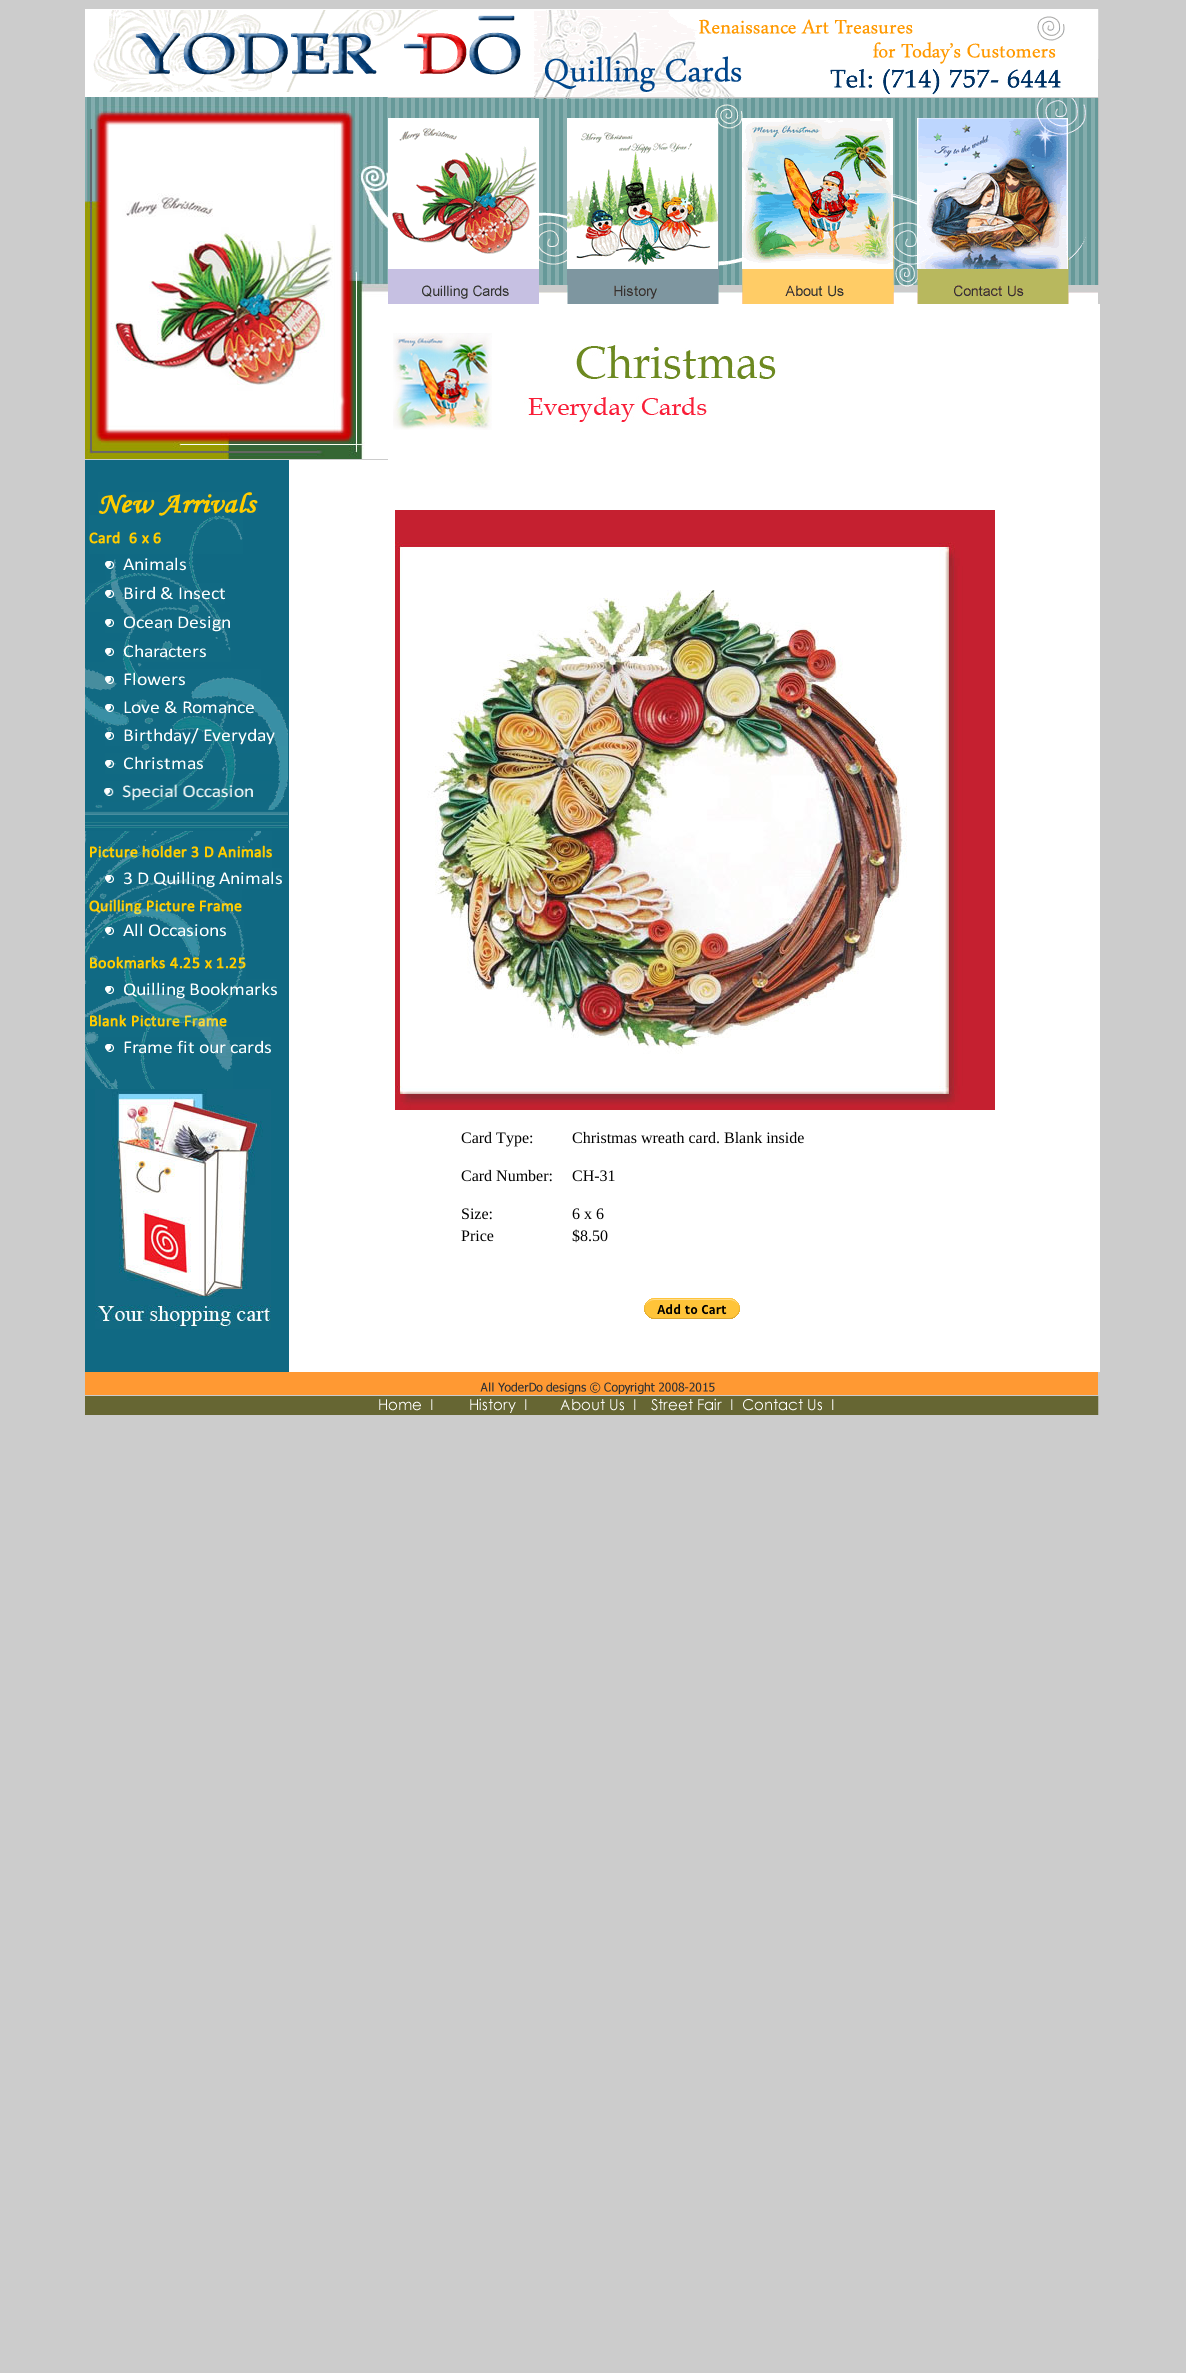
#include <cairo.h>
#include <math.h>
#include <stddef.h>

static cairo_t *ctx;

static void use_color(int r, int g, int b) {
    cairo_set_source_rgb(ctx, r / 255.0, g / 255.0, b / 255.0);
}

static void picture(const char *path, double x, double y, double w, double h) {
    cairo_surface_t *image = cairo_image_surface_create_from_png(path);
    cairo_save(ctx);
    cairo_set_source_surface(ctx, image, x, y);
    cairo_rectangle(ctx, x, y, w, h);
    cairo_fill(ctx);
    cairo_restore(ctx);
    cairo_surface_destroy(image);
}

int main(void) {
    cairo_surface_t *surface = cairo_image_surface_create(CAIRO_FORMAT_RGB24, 1186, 2373);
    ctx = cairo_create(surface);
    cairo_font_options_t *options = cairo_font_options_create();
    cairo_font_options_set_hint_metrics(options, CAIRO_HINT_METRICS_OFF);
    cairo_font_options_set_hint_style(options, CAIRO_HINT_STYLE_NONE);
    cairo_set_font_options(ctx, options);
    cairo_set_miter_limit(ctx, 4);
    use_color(204, 204, 204);
    cairo_paint(ctx);
    picture("img1.png", 85, 9, 1014, 88);
    picture("img2.png", 85, 97, 303, 362);
    picture("img3.png", 388, 98, 179, 206);
    picture("img4.png", 567, 98, 175, 206);
    picture("img5.png", 742, 98, 175, 206);
    picture("img6.png", 917, 98, 182, 206);
    use_color(255, 255, 255);
    cairo_rectangle(ctx, 388, 304, 712, 156);
    cairo_fill(ctx);
    picture("img7.png", 393, 333, 383, 97);
    use_color(16, 105, 131);
    cairo_rectangle(ctx, 85, 460, 204, 912);
    cairo_fill(ctx);
    picture("img8.png", 95, 1089, 176, 240);
    picture("img9.png", 98, 492, 160, 23);
    picture("img10.png", 89, 515, 154, 39);
    picture("img11.png", 105, 554, 90, 21);
    picture("img12.png", 106, 575, 91, 8);
    picture("img13.png", 85, 583, 140, 21);
    picture("img14.png", 85, 604, 132, 8);
    picture("img15.png", 105, 612, 125, 21);
    picture("img16.png", 126, 633, 102, 8);
    picture("img17.png", 105, 641, 126, 21);
    picture("img18.png", 85, 662, 57, 7);
    picture("img19.png", 85, 669, 176, 21);
    picture("img20.png", 85, 690, 184, 7);
    picture("img21.png", 85, 697, 199, 21);
    picture("img22.png", 94, 718, 192, 7);
    picture("img23.png", 105, 725, 183, 21);
    picture("img24.png", 141, 746, 147, 7);
    picture("img25.png", 105, 753, 183, 21);
    picture("img26.png", 179, 774, 109, 7);
    picture("img27.png", 104, 781, 184, 21);
    picture("img28.png", 95, 802, 186, 8);
    picture("img29.png", 85, 811, 203, 17);
    picture("img30.png", 85, 831, 187, 37);
    picture("img31.png", 85, 868, 197, 21);
    picture("img32.png", 85, 889, 157, 31);
    picture("img33.png", 85, 920, 159, 21);
    picture("img34.png", 85, 941, 161, 38);
    picture("img35.png", 85, 979, 192, 21);
    picture("img36.png", 85, 1000, 143, 37);
    picture("img37.png", 85, 1037, 186, 21);
    picture("img38.png", 85, 1058, 148, 31);
    use_color(255, 255, 255);
    cairo_rectangle(ctx, 289, 460, 811, 912);
    cairo_fill(ctx);
    picture("img39.png", 395, 510, 600, 600);
    cairo_select_font_face(ctx, "Liberation Serif", CAIRO_FONT_SLANT_NORMAL, CAIRO_FONT_WEIGHT_NORMAL);
    cairo_set_font_size(ctx, 16);
    use_color(0, 0, 0);
    cairo_move_to(ctx, 461, 1143);
    cairo_show_text(ctx, "Card Type:");
    cairo_move_to(ctx, 572, 1143);
    cairo_show_text(ctx, "Christmas wreath card. Blank inside");
    cairo_move_to(ctx, 461, 1181);
    cairo_show_text(ctx, "Card Number:");
    cairo_move_to(ctx, 572, 1181);
    cairo_show_text(ctx, "CH-31");
    cairo_move_to(ctx, 461, 1219);
    cairo_show_text(ctx, "Size:");
    cairo_move_to(ctx, 572, 1219);
    cairo_show_text(ctx, "6 x 6");
    cairo_move_to(ctx, 461, 1241);
    cairo_show_text(ctx, "Price");
    cairo_move_to(ctx, 572, 1241);
    cairo_show_text(ctx, "$8.50");
    picture("img40.png", 644, 1298, 96, 21);
    picture("img41.png", 85, 1372, 1013, 23);
    use_color(102, 102, 51);
    cairo_rectangle(ctx, 85, 1396, 290, 19);
    cairo_fill(ctx);
    picture("img42.png", 375, 1396, 91, 19);
    picture("img43.png", 466, 1396, 91, 19);
    picture("img44.png", 557, 1396, 91, 19);
    picture("img45.png", 648, 1396, 91, 19);
    picture("img46.png", 739, 1396, 91, 19);
    picture("img47.png", 830, 1396, 269, 19);
    cairo_surface_write_to_png(surface, "result.png");
    cairo_font_options_destroy(options);
    cairo_destroy(ctx);
    cairo_surface_destroy(surface);
    return 0;
}
